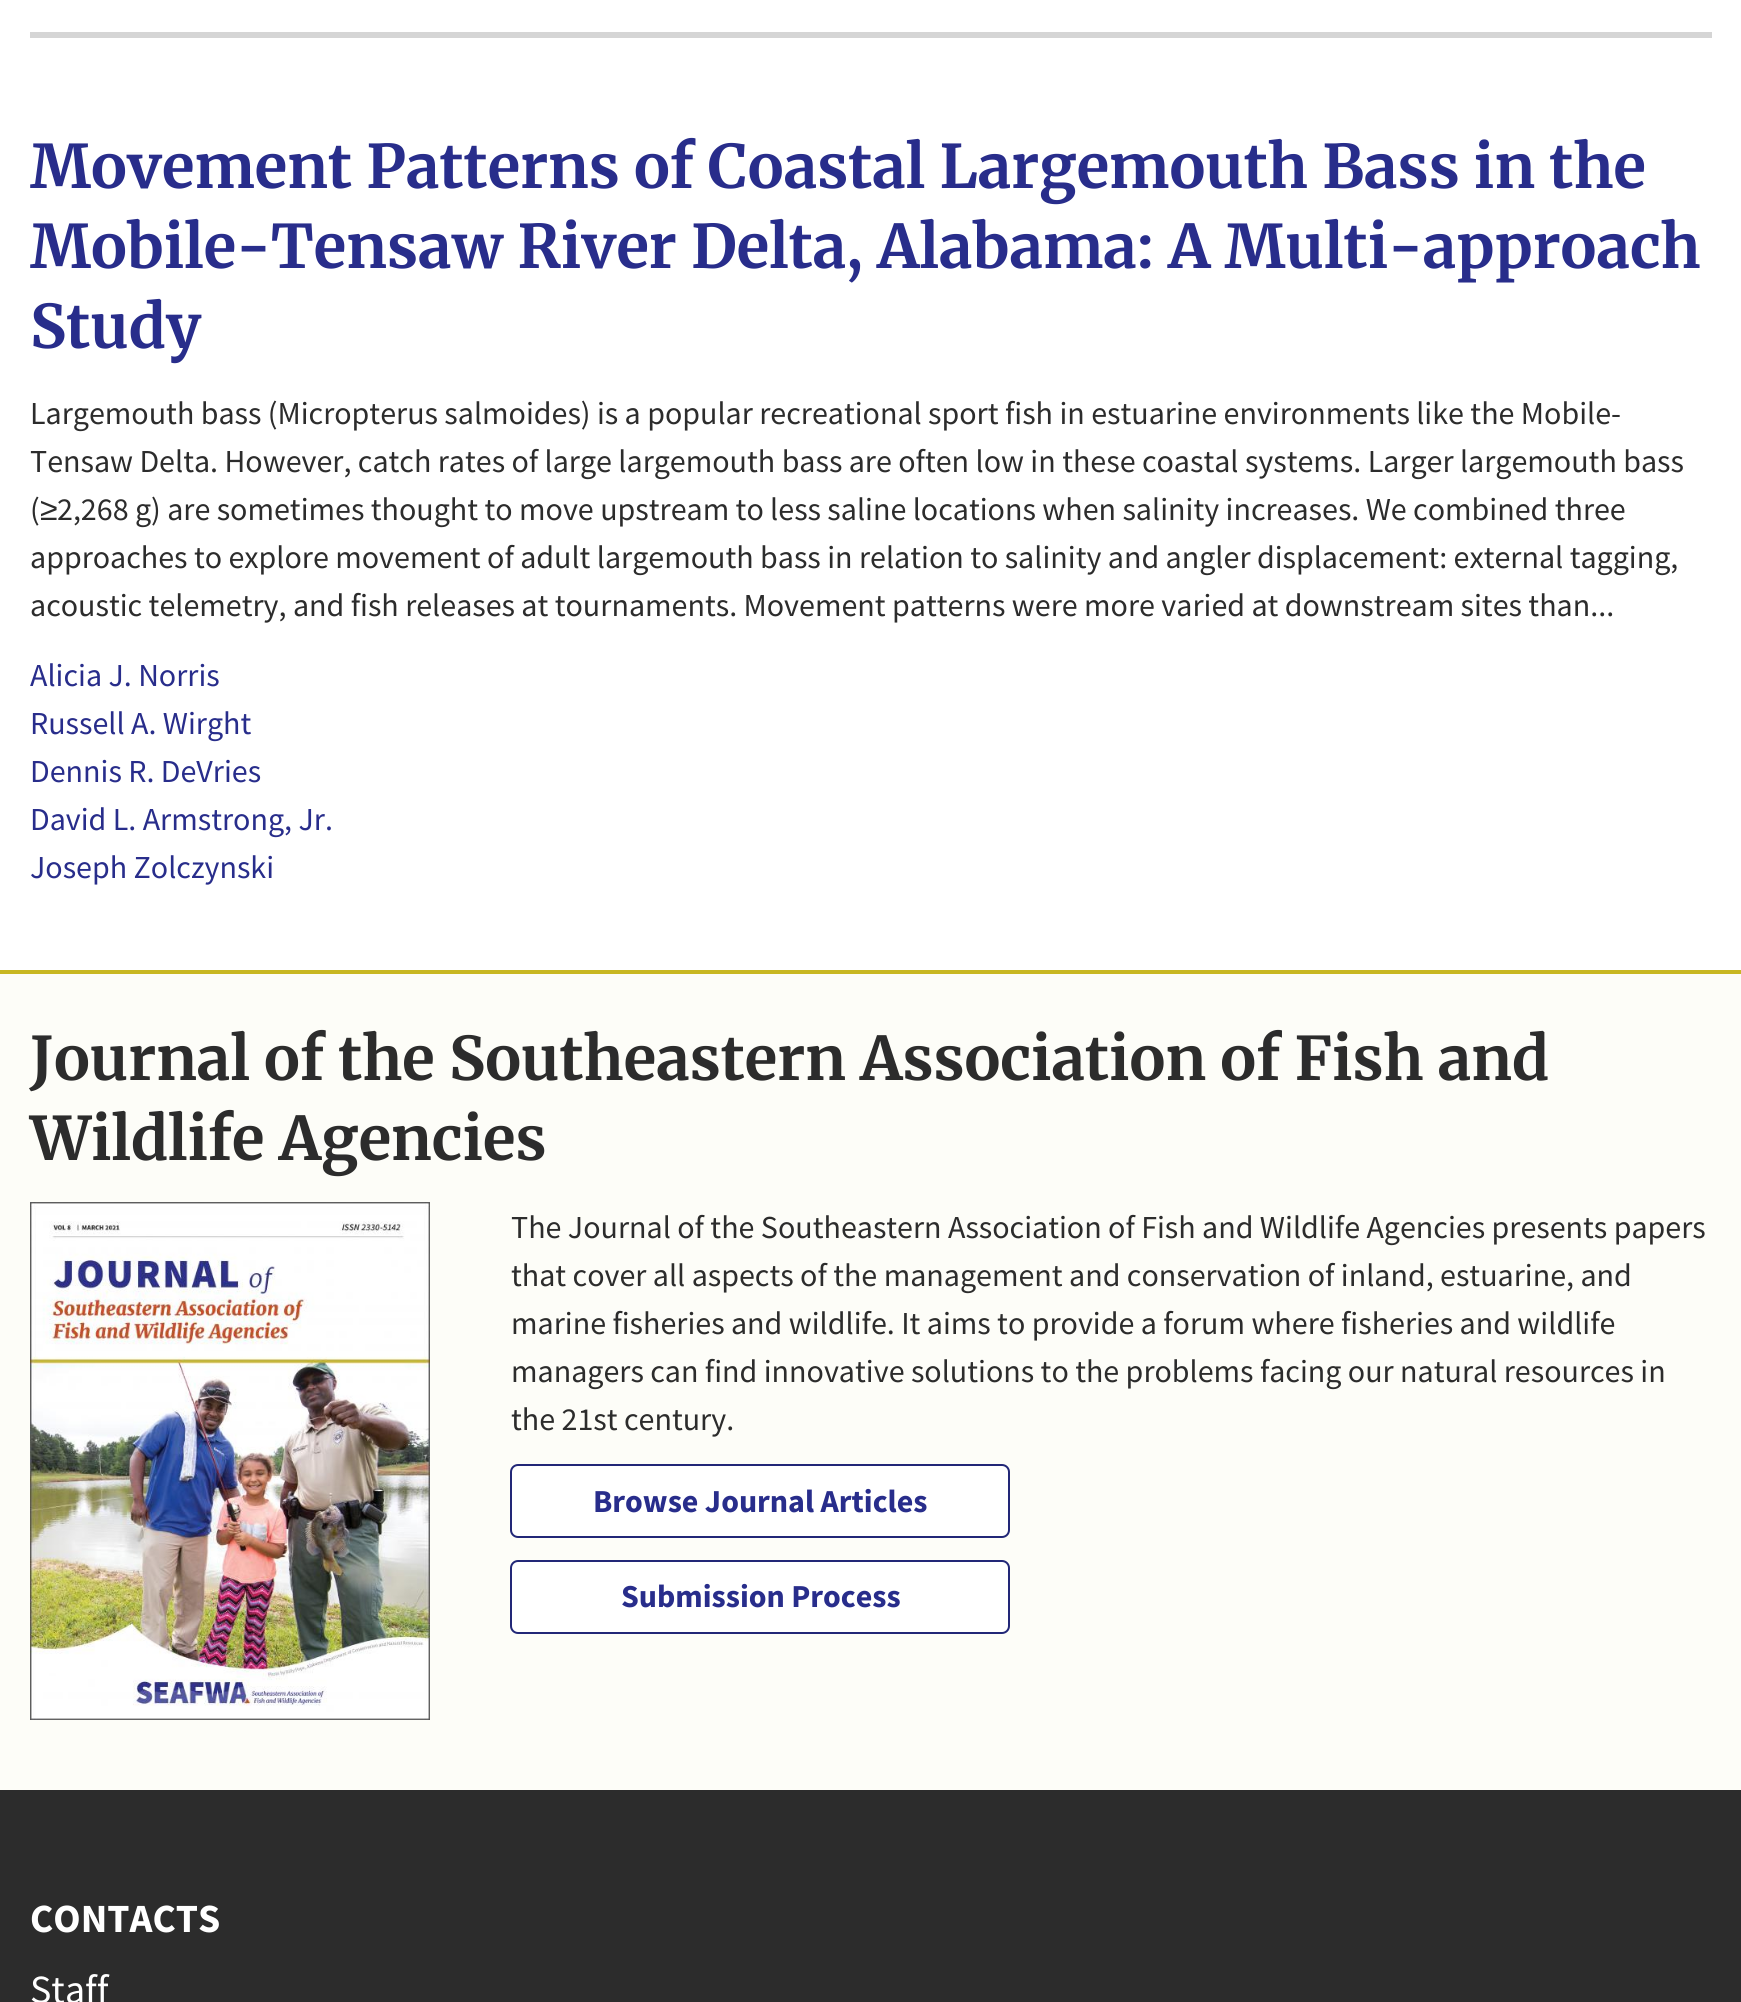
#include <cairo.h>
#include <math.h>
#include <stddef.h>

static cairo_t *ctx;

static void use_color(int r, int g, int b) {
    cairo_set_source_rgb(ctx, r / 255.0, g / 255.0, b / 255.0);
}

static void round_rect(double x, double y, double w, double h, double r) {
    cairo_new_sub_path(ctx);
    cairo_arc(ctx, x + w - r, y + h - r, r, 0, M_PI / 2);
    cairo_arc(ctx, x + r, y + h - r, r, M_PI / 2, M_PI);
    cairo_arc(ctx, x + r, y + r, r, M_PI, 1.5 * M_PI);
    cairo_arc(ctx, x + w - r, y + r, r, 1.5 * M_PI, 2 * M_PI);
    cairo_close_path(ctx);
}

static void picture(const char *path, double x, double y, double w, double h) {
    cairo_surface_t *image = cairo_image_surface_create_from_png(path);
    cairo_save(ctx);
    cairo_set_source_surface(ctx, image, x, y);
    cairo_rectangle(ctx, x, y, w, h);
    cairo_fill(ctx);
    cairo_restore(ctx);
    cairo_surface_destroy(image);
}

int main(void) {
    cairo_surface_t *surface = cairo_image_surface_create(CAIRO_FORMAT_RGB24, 1741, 2002);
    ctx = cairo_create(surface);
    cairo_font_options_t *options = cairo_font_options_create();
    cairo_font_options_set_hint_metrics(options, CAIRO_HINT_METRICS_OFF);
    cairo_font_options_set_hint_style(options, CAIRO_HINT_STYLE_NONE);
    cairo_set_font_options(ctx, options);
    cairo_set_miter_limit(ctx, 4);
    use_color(255, 255, 255);
    cairo_paint(ctx);
    use_color(213, 213, 213);
    cairo_rectangle(ctx, 30, 32, 1682, 6);
    cairo_fill(ctx);
    cairo_select_font_face(ctx, "Merriweather", CAIRO_FONT_SLANT_NORMAL, CAIRO_FONT_WEIGHT_BOLD);
    cairo_set_font_size(ctx, 60);
    use_color(40, 45, 139);
    cairo_move_to(ctx, 30, 188);
    cairo_show_text(ctx, "Movement Patterns of Coastal Largemouth Bass in the");
    cairo_move_to(ctx, 30, 268);
    cairo_show_text(ctx, "Mobile-Tensaw River Delta, Alabama: A Multi-approach");
    cairo_move_to(ctx, 30, 348);
    cairo_show_text(ctx, "Study");
    cairo_select_font_face(ctx, "Source Sans Pro", CAIRO_FONT_SLANT_NORMAL, CAIRO_FONT_WEIGHT_NORMAL);
    cairo_set_font_size(ctx, 32);
    use_color(44, 44, 44);
    cairo_move_to(ctx, 30, 424);
    cairo_show_text(ctx, "Largemouth bass (Micropterus salmoides) is a popular recreational sport fish in estuarine environments like the Mobile-");
    cairo_move_to(ctx, 30, 472);
    cairo_show_text(ctx, "Tensaw Delta. However, catch rates of large largemouth bass are often low in these coastal systems. Larger largemouth bass");
    cairo_move_to(ctx, 30, 520);
    cairo_show_text(ctx, "(");
    cairo_select_font_face(ctx, "Liberation Sans", CAIRO_FONT_SLANT_NORMAL, CAIRO_FONT_WEIGHT_NORMAL);
    cairo_move_to(ctx, 40, 520);
    cairo_show_text(ctx, "≥");
    cairo_select_font_face(ctx, "Source Sans Pro", CAIRO_FONT_SLANT_NORMAL, CAIRO_FONT_WEIGHT_NORMAL);
    cairo_move_to(ctx, 57, 520);
    cairo_show_text(ctx, "2,268 g) are sometimes thought to move upstream to less saline locations when salinity increases. We combined three");
    cairo_move_to(ctx, 30, 568);
    cairo_show_text(ctx, "approaches to explore movement of adult largemouth bass in relation to salinity and angler displacement: external tagging,");
    cairo_move_to(ctx, 30, 616);
    cairo_show_text(ctx, "acoustic telemetry, and fish releases at tournaments. Movement patterns were more varied at downstream sites than...");
    use_color(40, 45, 139);
    cairo_move_to(ctx, 30, 686);
    cairo_show_text(ctx, "Alicia J. Norris");
    cairo_move_to(ctx, 30, 734);
    cairo_show_text(ctx, "Russell A. Wirght");
    cairo_move_to(ctx, 30, 782);
    cairo_show_text(ctx, "Dennis R. DeVries");
    cairo_move_to(ctx, 30, 830);
    cairo_show_text(ctx, "David L. Armstrong, Jr.");
    cairo_move_to(ctx, 30, 878);
    cairo_show_text(ctx, "Joseph Zolczynski");
    use_color(253, 253, 248);
    cairo_rectangle(ctx, 0, 974, 1741, 816);
    cairo_fill(ctx);
    use_color(200, 183, 34);
    cairo_rectangle(ctx, 0, 970, 1741, 4);
    cairo_fill(ctx);
    cairo_select_font_face(ctx, "Merriweather", CAIRO_FONT_SLANT_NORMAL, CAIRO_FONT_WEIGHT_BOLD);
    cairo_set_font_size(ctx, 60);
    use_color(44, 44, 44);
    cairo_move_to(ctx, 30, 1080);
    cairo_show_text(ctx, "Journal of the Southeastern Association of Fish and");
    cairo_move_to(ctx, 30, 1160);
    cairo_show_text(ctx, "Wildlife Agencies");
    picture("img1.png", 30, 1202, 400, 518);
    cairo_select_font_face(ctx, "Source Sans Pro", CAIRO_FONT_SLANT_NORMAL, CAIRO_FONT_WEIGHT_NORMAL);
    cairo_set_font_size(ctx, 32);
    cairo_move_to(ctx, 511, 1238);
    cairo_show_text(ctx, "The Journal of the Southeastern Association of Fish and Wildlife Agencies presents papers");
    cairo_move_to(ctx, 511, 1286);
    cairo_show_text(ctx, "that cover all aspects of the management and conservation of inland, estuarine, and");
    cairo_move_to(ctx, 511, 1334);
    cairo_show_text(ctx, "marine fisheries and wildlife. It aims to provide a forum where fisheries and wildlife");
    cairo_move_to(ctx, 511, 1382);
    cairo_show_text(ctx, "managers can find innovative solutions to the problems facing our natural resources in");
    cairo_move_to(ctx, 511, 1430);
    cairo_show_text(ctx, "the 21st century.");
    use_color(255, 255, 255);
    round_rect(511, 1465, 498, 72, 7);
    cairo_fill_preserve(ctx);
    use_color(34, 39, 119);
    cairo_stroke(ctx);
    cairo_select_font_face(ctx, "Source Sans Pro", CAIRO_FONT_SLANT_NORMAL, CAIRO_FONT_WEIGHT_BOLD);
    use_color(40, 45, 139);
    cairo_move_to(ctx, 593, 1512);
    cairo_show_text(ctx, "Browse Journal Articles");
    use_color(255, 255, 255);
    round_rect(511, 1561, 498, 72, 7);
    cairo_fill_preserve(ctx);
    use_color(34, 39, 119);
    cairo_stroke(ctx);
    use_color(40, 45, 139);
    cairo_move_to(ctx, 621, 1607);
    cairo_show_text(ctx, "Submission Process");
    use_color(44, 44, 44);
    cairo_rectangle(ctx, 0, 1790, 1741, 212);
    cairo_fill(ctx);
    cairo_set_font_size(ctx, 40);
    use_color(255, 255, 255);
    cairo_move_to(ctx, 30, 1932);
    cairo_show_text(ctx, "CONTACTS");
    cairo_select_font_face(ctx, "Source Sans Pro", CAIRO_FONT_SLANT_NORMAL, CAIRO_FONT_WEIGHT_NORMAL);
    cairo_move_to(ctx, 30, 2003);
    cairo_show_text(ctx, "Staff");
    cairo_surface_write_to_png(surface, "result.png");
    cairo_font_options_destroy(options);
    cairo_destroy(ctx);
    cairo_surface_destroy(surface);
    return 0;
}
